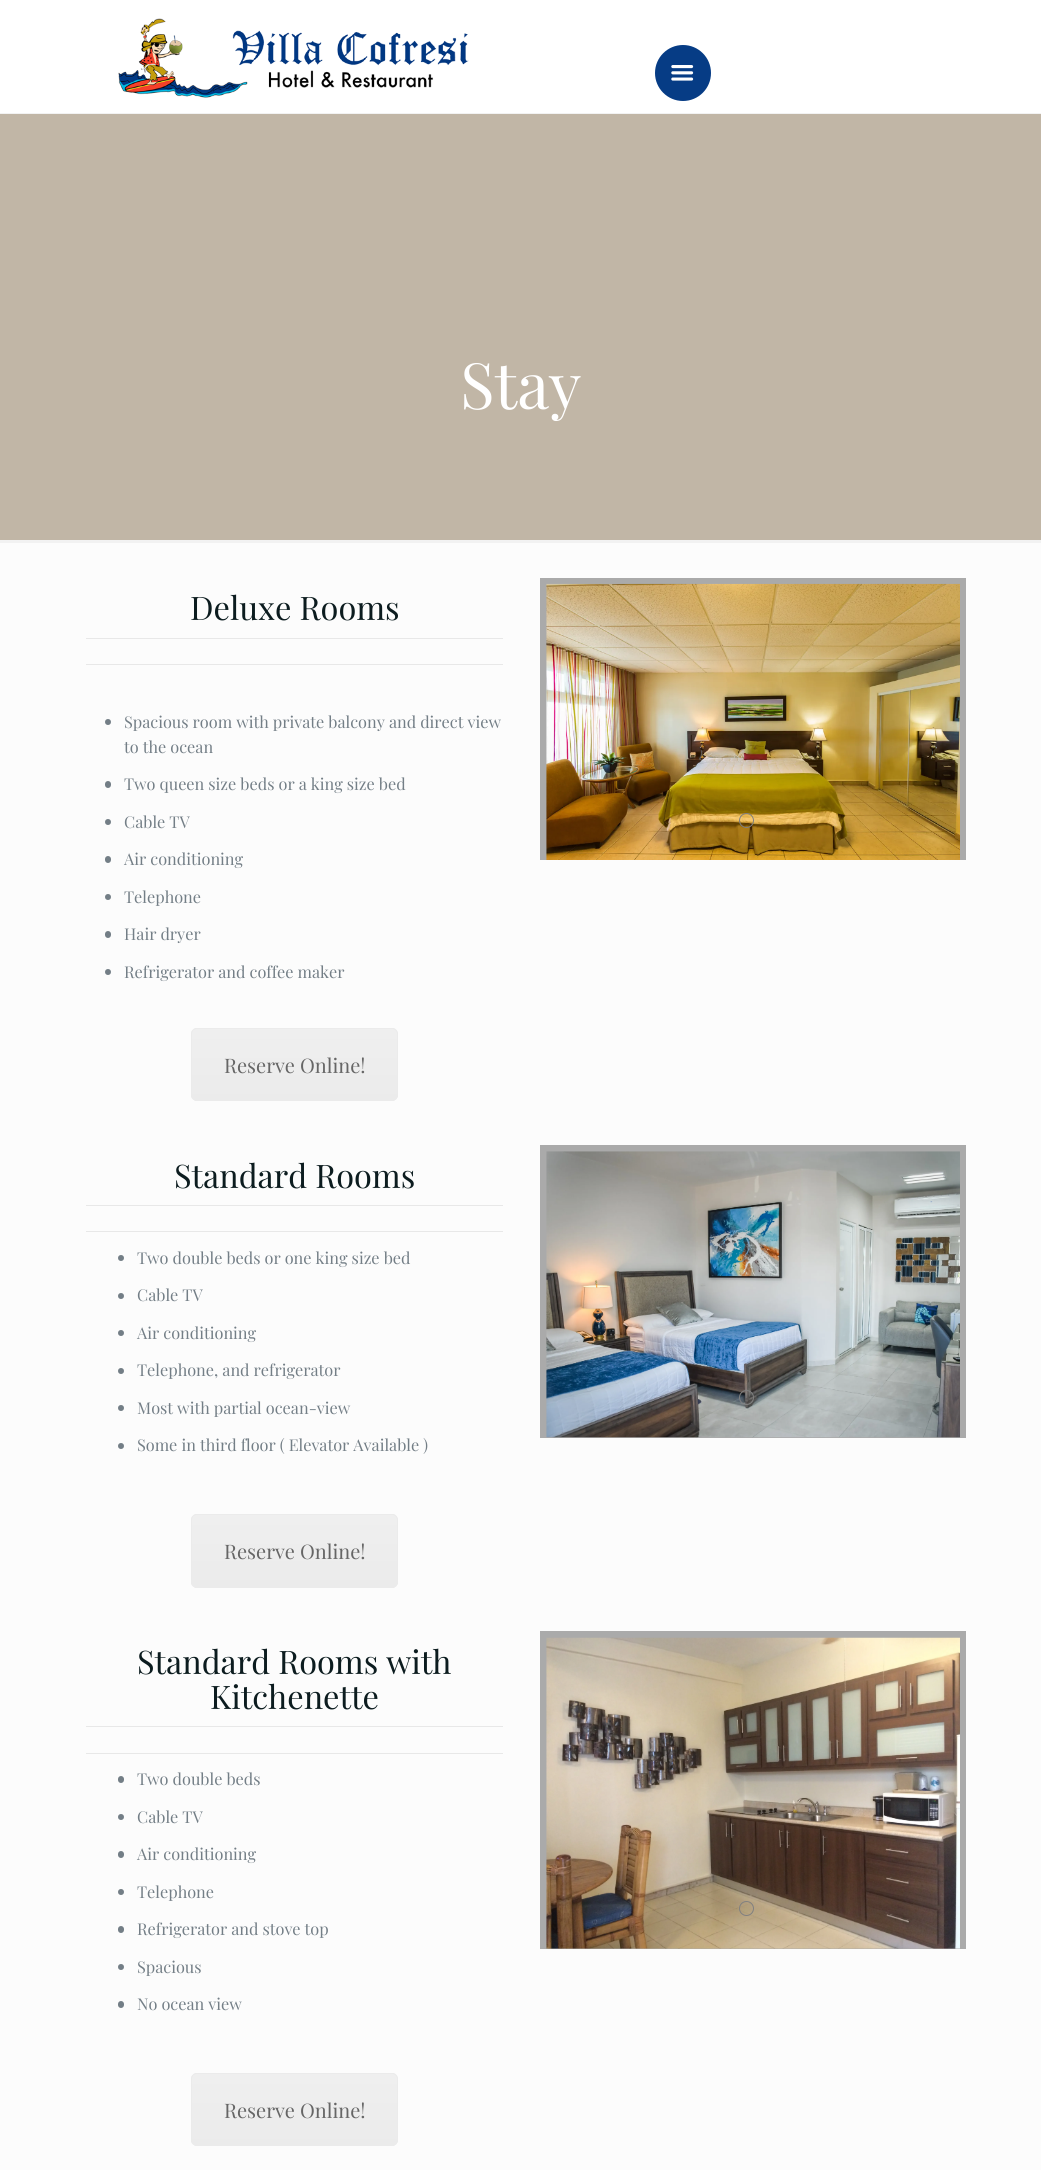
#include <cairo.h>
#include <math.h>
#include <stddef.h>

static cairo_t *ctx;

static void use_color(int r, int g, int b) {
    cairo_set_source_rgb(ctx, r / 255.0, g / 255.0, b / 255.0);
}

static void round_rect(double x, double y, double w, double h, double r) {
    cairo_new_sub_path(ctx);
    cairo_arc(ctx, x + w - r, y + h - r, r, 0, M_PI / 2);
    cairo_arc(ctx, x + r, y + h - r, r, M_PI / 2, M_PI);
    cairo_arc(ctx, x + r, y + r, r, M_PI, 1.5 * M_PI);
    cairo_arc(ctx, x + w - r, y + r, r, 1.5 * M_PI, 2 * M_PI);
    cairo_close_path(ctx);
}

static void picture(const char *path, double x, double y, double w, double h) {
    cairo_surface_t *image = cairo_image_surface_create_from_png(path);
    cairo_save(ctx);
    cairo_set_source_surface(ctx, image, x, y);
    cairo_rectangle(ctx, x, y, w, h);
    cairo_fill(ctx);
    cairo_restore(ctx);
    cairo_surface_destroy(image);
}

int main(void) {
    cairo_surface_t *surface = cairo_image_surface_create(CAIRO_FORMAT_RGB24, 1041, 2170);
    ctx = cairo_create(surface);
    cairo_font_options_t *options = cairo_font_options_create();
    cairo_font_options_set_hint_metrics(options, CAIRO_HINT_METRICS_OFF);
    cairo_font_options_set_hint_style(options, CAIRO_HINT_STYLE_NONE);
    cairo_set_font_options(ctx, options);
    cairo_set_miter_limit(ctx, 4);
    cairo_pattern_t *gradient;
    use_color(252, 252, 252);
    cairo_paint(ctx);
    use_color(193, 182, 166);
    cairo_rectangle(ctx, 0, 114, 1041, 426);
    cairo_fill(ctx);
    use_color(255, 255, 255);
    cairo_rectangle(ctx, 0, 0, 1041, 113);
    cairo_fill(ctx);
    use_color(242, 242, 242);
    cairo_rectangle(ctx, 0, 113, 1041, 1);
    cairo_fill(ctx);
    picture("img1.png", 118, 18, 351, 80);
    use_color(6, 60, 133);
    cairo_arc(ctx, 683, 73, 28, 0, 2 * M_PI);
    cairo_fill(ctx);
    picture("img2.png", 671, 65, 23, 16);
    cairo_select_font_face(ctx, "Playfair Display", CAIRO_FONT_SLANT_NORMAL, CAIRO_FONT_WEIGHT_NORMAL);
    cairo_set_font_size(ctx, 64);
    use_color(255, 255, 255);
    cairo_move_to(ctx, 460, 409);
    cairo_show_text(ctx, "Stay");
    use_color(242, 242, 242);
    cairo_rectangle(ctx, 0, 540, 1041, 3);
    cairo_fill(ctx);
    use_color(232, 232, 232);
    cairo_rectangle(ctx, 86, 638, 417, 1);
    cairo_fill(ctx);
    cairo_set_font_size(ctx, 32.5);
    use_color(12, 28, 31);
    cairo_move_to(ctx, 190, 620);
    cairo_show_text(ctx, "Deluxe Rooms");
    use_color(232, 232, 232);
    cairo_rectangle(ctx, 86, 664, 417, 1);
    cairo_fill(ctx);
    use_color(115, 126, 134);
    cairo_arc(ctx, 108, 722, 3, 0, 2 * M_PI);
    cairo_fill(ctx);
    cairo_set_font_size(ctx, 16.25);
    cairo_move_to(ctx, 124, 728);
    cairo_show_text(ctx, "Spacious room with private balcony and direct view");
    cairo_move_to(ctx, 124, 753);
    cairo_show_text(ctx, "to the ocean");
    round_rect(105, 781, 6, 7, 3);
    cairo_fill(ctx);
    cairo_move_to(ctx, 124, 790);
    cairo_show_text(ctx, "Two queen size beds or a king size bed");
    cairo_new_path(ctx);
    cairo_arc(ctx, 108, 822, 3, 0, 2 * M_PI);
    cairo_fill(ctx);
    cairo_move_to(ctx, 124, 828);
    cairo_show_text(ctx, "Cable TV");
    round_rect(105, 856, 6, 7, 3);
    cairo_fill(ctx);
    cairo_move_to(ctx, 124, 865);
    cairo_show_text(ctx, "Air conditioning");
    cairo_new_path(ctx);
    cairo_arc(ctx, 108, 897, 3, 0, 2 * M_PI);
    cairo_fill(ctx);
    cairo_move_to(ctx, 124, 903);
    cairo_show_text(ctx, "Telephone");
    round_rect(105, 931, 6, 7, 3);
    cairo_fill(ctx);
    cairo_move_to(ctx, 124, 940);
    cairo_show_text(ctx, "Hair dryer");
    cairo_new_path(ctx);
    cairo_arc(ctx, 108, 972, 3, 0, 2 * M_PI);
    cairo_fill(ctx);
    cairo_move_to(ctx, 124, 978);
    cairo_show_text(ctx, "Refrigerator and coffee maker");
    use_color(235, 235, 235);
    round_rect(191, 1028, 207, 73, 6);
    cairo_fill(ctx);
    cairo_save(ctx);
    round_rect(191, 1028, 207, 73, 6);
    cairo_clip(ctx);
    gradient = cairo_pattern_create_linear(294, 1029, 294, 1100);
    cairo_pattern_add_color_stop_rgba(gradient, 0, 1, 1, 1, 0.2);
    cairo_pattern_add_color_stop_rgba(gradient, 1, 1, 1, 1, 0.01);
    cairo_set_source(ctx, gradient);
    cairo_pattern_destroy(gradient);
    cairo_rectangle(ctx, 191, 1029, 207, 67);
    cairo_fill(ctx);
    cairo_restore(ctx);
    round_rect(191.5, 1028.5, 206, 72, 5.5);
    cairo_set_line_width(ctx, 1);
    cairo_stroke(ctx);
    cairo_set_font_size(ctx, 20);
    use_color(102, 102, 102);
    cairo_move_to(ctx, 224, 1073);
    cairo_show_text(ctx, "Reserve Online!");
    use_color(170, 170, 170);
    cairo_rectangle(ctx, 540, 578, 426, 282);
    cairo_fill(ctx);
    picture("img3.png", 546, 583, 414, 277);
    cairo_arc(ctx, 746.5, 820.5, 7, 0, 2 * M_PI);
    use_color(128, 128, 128);
    cairo_stroke(ctx);
    use_color(232, 232, 232);
    cairo_rectangle(ctx, 86, 1205, 417, 1);
    cairo_fill(ctx);
    cairo_set_font_size(ctx, 32.5);
    use_color(12, 28, 31);
    cairo_move_to(ctx, 174, 1188);
    cairo_show_text(ctx, "Standard Rooms");
    use_color(232, 232, 232);
    cairo_rectangle(ctx, 86, 1231, 417, 1);
    cairo_fill(ctx);
    use_color(115, 126, 134);
    cairo_arc(ctx, 121, 1258, 3, 0, 2 * M_PI);
    cairo_fill(ctx);
    cairo_set_font_size(ctx, 16.25);
    cairo_move_to(ctx, 137, 1264);
    cairo_show_text(ctx, "Two double beds or one king size bed");
    cairo_new_path(ctx);
    cairo_arc(ctx, 121, 1296, 3, 0, 2 * M_PI);
    cairo_fill(ctx);
    cairo_move_to(ctx, 137, 1301);
    cairo_show_text(ctx, "Cable TV");
    cairo_new_path(ctx);
    cairo_arc(ctx, 121, 1333, 3, 0, 2 * M_PI);
    cairo_fill(ctx);
    cairo_move_to(ctx, 137, 1339);
    cairo_show_text(ctx, "Air conditioning");
    cairo_new_path(ctx);
    cairo_arc(ctx, 121, 1371, 3, 0, 2 * M_PI);
    cairo_fill(ctx);
    cairo_move_to(ctx, 137, 1376);
    cairo_show_text(ctx, "Telephone, and refrigerator");
    cairo_new_path(ctx);
    cairo_arc(ctx, 121, 1408, 3, 0, 2 * M_PI);
    cairo_fill(ctx);
    cairo_move_to(ctx, 137, 1414);
    cairo_show_text(ctx, "Most with partial ocean-view");
    cairo_new_path(ctx);
    cairo_arc(ctx, 121, 1446, 3, 0, 2 * M_PI);
    cairo_fill(ctx);
    cairo_move_to(ctx, 137, 1451);
    cairo_show_text(ctx, "Some in third floor ( Elevator Available )");
    use_color(235, 235, 235);
    round_rect(191, 1514, 207, 74, 6);
    cairo_fill(ctx);
    cairo_save(ctx);
    round_rect(191, 1514, 207, 74, 6);
    cairo_clip(ctx);
    gradient = cairo_pattern_create_linear(294, 1515, 294, 1586);
    cairo_pattern_add_color_stop_rgba(gradient, 0, 1, 1, 1, 0.2);
    cairo_pattern_add_color_stop_rgba(gradient, 1, 1, 1, 1, 0.01);
    cairo_set_source(ctx, gradient);
    cairo_pattern_destroy(gradient);
    cairo_rectangle(ctx, 191, 1515, 207, 67);
    cairo_fill(ctx);
    cairo_restore(ctx);
    round_rect(191.5, 1514.5, 206, 73, 5.5);
    cairo_stroke(ctx);
    cairo_set_font_size(ctx, 20);
    use_color(102, 102, 102);
    cairo_move_to(ctx, 224, 1559);
    cairo_show_text(ctx, "Reserve Online!");
    use_color(170, 170, 170);
    cairo_rectangle(ctx, 540, 1145, 426, 293);
    cairo_fill(ctx);
    picture("img4.png", 546, 1151, 414, 287);
    cairo_arc(ctx, 746.5, 1397.5, 7, 0, 2 * M_PI);
    use_color(128, 128, 128);
    cairo_stroke(ctx);
    use_color(232, 232, 232);
    cairo_rectangle(ctx, 86, 1726, 417, 1);
    cairo_fill(ctx);
    cairo_set_font_size(ctx, 32.5);
    use_color(12, 28, 31);
    cairo_move_to(ctx, 137, 1674);
    cairo_show_text(ctx, "Standard Rooms with");
    cairo_move_to(ctx, 210, 1709);
    cairo_show_text(ctx, "Kitchenette");
    use_color(232, 232, 232);
    cairo_rectangle(ctx, 86, 1753, 417, 1);
    cairo_fill(ctx);
    use_color(115, 126, 134);
    round_rect(118, 1776, 6, 7, 3);
    cairo_fill(ctx);
    cairo_set_font_size(ctx, 16.25);
    cairo_move_to(ctx, 137, 1785);
    cairo_show_text(ctx, "Two double beds");
    cairo_new_path(ctx);
    cairo_arc(ctx, 121, 1817, 3, 0, 2 * M_PI);
    cairo_fill(ctx);
    cairo_move_to(ctx, 137, 1823);
    cairo_show_text(ctx, "Cable TV");
    round_rect(118, 1851, 6, 7, 3);
    cairo_fill(ctx);
    cairo_move_to(ctx, 137, 1860);
    cairo_show_text(ctx, "Air conditioning");
    cairo_new_path(ctx);
    cairo_arc(ctx, 121, 1892, 3, 0, 2 * M_PI);
    cairo_fill(ctx);
    cairo_move_to(ctx, 137, 1898);
    cairo_show_text(ctx, "Telephone");
    round_rect(118, 1926, 6, 7, 3);
    cairo_fill(ctx);
    cairo_move_to(ctx, 137, 1935);
    cairo_show_text(ctx, "Refrigerator and stove top");
    cairo_new_path(ctx);
    cairo_arc(ctx, 121, 1967, 3, 0, 2 * M_PI);
    cairo_fill(ctx);
    cairo_move_to(ctx, 137, 1973);
    cairo_show_text(ctx, "Spacious");
    round_rect(118, 2001, 6, 7, 3);
    cairo_fill(ctx);
    cairo_move_to(ctx, 137, 2010);
    cairo_show_text(ctx, "No ocean view");
    use_color(235, 235, 235);
    round_rect(191, 2073, 207, 73, 6);
    cairo_fill(ctx);
    cairo_save(ctx);
    round_rect(191, 2073, 207, 73, 6);
    cairo_clip(ctx);
    gradient = cairo_pattern_create_linear(294, 2074, 294, 2145);
    cairo_pattern_add_color_stop_rgba(gradient, 0, 1, 1, 1, 0.2);
    cairo_pattern_add_color_stop_rgba(gradient, 1, 1, 1, 1, 0.01);
    cairo_set_source(ctx, gradient);
    cairo_pattern_destroy(gradient);
    cairo_rectangle(ctx, 191, 2074, 207, 67);
    cairo_fill(ctx);
    cairo_restore(ctx);
    round_rect(191.5, 2073.5, 206, 72, 5.5);
    cairo_stroke(ctx);
    cairo_set_font_size(ctx, 20);
    use_color(102, 102, 102);
    cairo_move_to(ctx, 224, 2118);
    cairo_show_text(ctx, "Reserve Online!");
    use_color(170, 170, 170);
    cairo_rectangle(ctx, 540, 1631, 426, 318);
    cairo_fill(ctx);
    picture("img5.png", 546, 1637, 414, 312);
    cairo_arc(ctx, 746.5, 1908.5, 7, 0, 2 * M_PI);
    use_color(128, 128, 128);
    cairo_stroke(ctx);
    cairo_surface_write_to_png(surface, "result.png");
    cairo_font_options_destroy(options);
    cairo_destroy(ctx);
    cairo_surface_destroy(surface);
    return 0;
}
